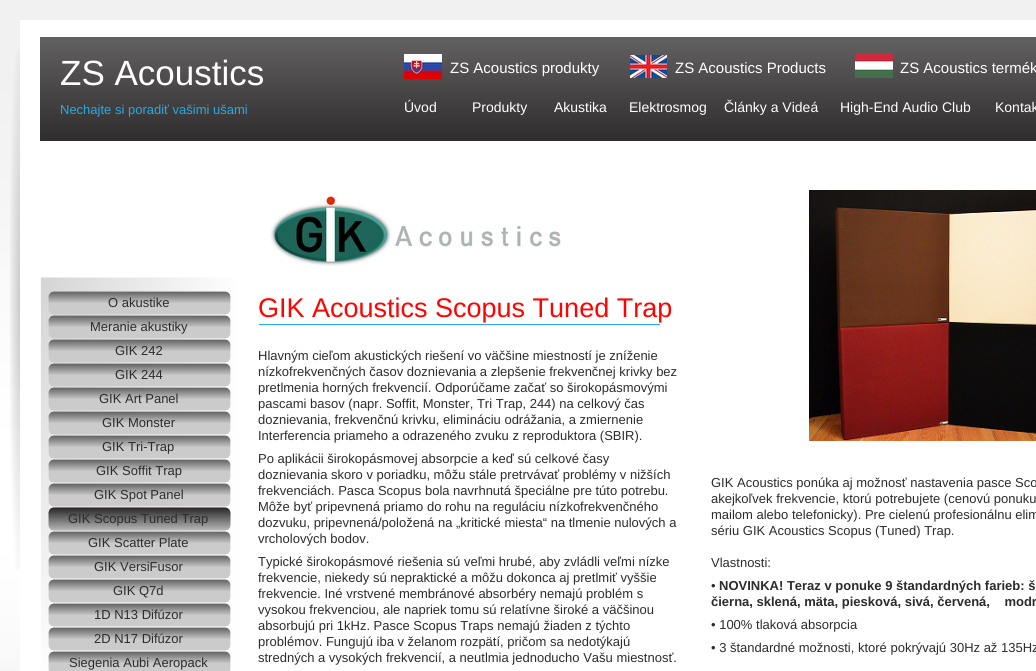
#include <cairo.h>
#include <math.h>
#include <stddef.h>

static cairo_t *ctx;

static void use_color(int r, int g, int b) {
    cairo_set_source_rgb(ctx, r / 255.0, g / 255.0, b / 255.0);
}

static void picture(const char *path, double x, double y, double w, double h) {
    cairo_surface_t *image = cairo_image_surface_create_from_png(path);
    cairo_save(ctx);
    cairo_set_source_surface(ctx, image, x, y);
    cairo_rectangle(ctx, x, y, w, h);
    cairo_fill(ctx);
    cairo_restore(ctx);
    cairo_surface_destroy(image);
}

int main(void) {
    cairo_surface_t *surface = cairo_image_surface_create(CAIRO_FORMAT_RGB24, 1036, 671);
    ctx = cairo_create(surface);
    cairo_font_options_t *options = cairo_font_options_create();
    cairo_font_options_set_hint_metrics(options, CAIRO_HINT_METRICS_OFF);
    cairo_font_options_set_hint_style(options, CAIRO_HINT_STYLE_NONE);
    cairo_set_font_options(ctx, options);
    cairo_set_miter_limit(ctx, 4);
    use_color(255, 255, 255);
    cairo_paint(ctx);
    picture("img1.png", 0, 0, 1036, 671);
    use_color(255, 255, 255);
    cairo_rectangle(ctx, 20, 20, 1016, 257);
    cairo_fill(ctx);
    picture("img2.png", 10, 50, 10, 520);
    picture("img3.png", 40, 37, 996, 104);
    cairo_select_font_face(ctx, "Liberation Sans", CAIRO_FONT_SLANT_NORMAL, CAIRO_FONT_WEIGHT_NORMAL);
    cairo_set_font_size(ctx, 35);
    cairo_move_to(ctx, 60, 85);
    cairo_show_text(ctx, "ZS Acoustics");
    picture("img4.png", 404, 54, 38, 25);
    cairo_set_font_size(ctx, 15);
    cairo_move_to(ctx, 450, 73);
    cairo_show_text(ctx, "ZS Acoustics produkty");
    picture("img5.png", 630, 55, 37, 23);
    cairo_move_to(ctx, 675, 73);
    cairo_show_text(ctx, "ZS Acoustics Products");
    picture("img6.png", 855, 53, 38, 25);
    cairo_move_to(ctx, 900, 73);
    cairo_show_text(ctx, "ZS Acoustics termék");
    cairo_set_font_size(ctx, 13);
    use_color(40, 170, 226);
    cairo_move_to(ctx, 60, 114);
    cairo_show_text(ctx, "Nechajte si poradiť vašimi ušami");
    cairo_set_font_size(ctx, 14);
    use_color(255, 255, 255);
    cairo_move_to(ctx, 404, 112);
    cairo_show_text(ctx, "Úvod");
    cairo_move_to(ctx, 472, 112);
    cairo_show_text(ctx, "Produkty");
    cairo_move_to(ctx, 554, 112);
    cairo_show_text(ctx, "Akustika");
    cairo_move_to(ctx, 629, 112);
    cairo_show_text(ctx, "Elektrosmog");
    cairo_move_to(ctx, 724, 112);
    cairo_show_text(ctx, "Články a Videá");
    cairo_move_to(ctx, 840, 112);
    cairo_show_text(ctx, "High-End Audio Club");
    cairo_move_to(ctx, 995, 112);
    cairo_show_text(ctx, "Kontak");
    picture("img7.png", 270, 192, 291, 74);
    picture("img9.png", 20, 277, 1016, 394);
    picture("img8.png", 809, 190, 227, 251);
    picture("img10.png", 48, 291, 183, 24);
    cairo_set_font_size(ctx, 13);
    use_color(45, 43, 43);
    cairo_move_to(ctx, 108, 307);
    cairo_show_text(ctx, "O akustike");
    picture("img11.png", 48, 315, 183, 24);
    cairo_move_to(ctx, 90, 331);
    cairo_show_text(ctx, "Meranie akustiky");
    picture("img12.png", 48, 339, 183, 24);
    cairo_move_to(ctx, 115, 355);
    cairo_show_text(ctx, "GIK 242");
    picture("img13.png", 48, 363, 183, 24);
    cairo_move_to(ctx, 115, 379);
    cairo_show_text(ctx, "GIK 244");
    picture("img14.png", 48, 387, 183, 24);
    cairo_move_to(ctx, 99, 403);
    cairo_show_text(ctx, "GIK Art Panel");
    picture("img15.png", 48, 411, 183, 24);
    cairo_move_to(ctx, 102, 427);
    cairo_show_text(ctx, "GIK Monster");
    picture("img16.png", 48, 435, 183, 24);
    cairo_move_to(ctx, 102, 451);
    cairo_show_text(ctx, "GIK Tri-Trap");
    picture("img17.png", 48, 459, 183, 24);
    cairo_move_to(ctx, 96, 475);
    cairo_show_text(ctx, "GIK Soffit Trap");
    picture("img18.png", 48, 483, 183, 24);
    cairo_move_to(ctx, 94, 499);
    cairo_show_text(ctx, "GIK Spot Panel");
    picture("img19.png", 48, 507, 183, 24);
    cairo_move_to(ctx, 68, 523);
    cairo_show_text(ctx, "GIK Scopus Tuned Trap");
    picture("img20.png", 48, 531, 183, 24);
    cairo_move_to(ctx, 88, 547);
    cairo_show_text(ctx, "GIK Scatter Plate");
    picture("img21.png", 48, 555, 183, 24);
    cairo_move_to(ctx, 94, 571);
    cairo_show_text(ctx, "GIK VersiFusor");
    picture("img22.png", 48, 579, 183, 24);
    cairo_move_to(ctx, 113, 595);
    cairo_show_text(ctx, "GIK Q7d");
    picture("img23.png", 48, 603, 183, 24);
    cairo_move_to(ctx, 94, 619);
    cairo_show_text(ctx, "1D N13 Difúzor");
    picture("img24.png", 48, 627, 183, 24);
    cairo_move_to(ctx, 94, 643);
    cairo_show_text(ctx, "2D N17 Difúzor");
    picture("img25.png", 48, 651, 183, 20);
    cairo_move_to(ctx, 69, 667);
    cairo_show_text(ctx, "Siegenia Aubi Aeropack");
    cairo_set_font_size(ctx, 27);
    use_color(255, 3, 0);
    cairo_move_to(ctx, 258, 317);
    cairo_show_text(ctx, "GIK Acoustics Scopus Tuned Trap");
    use_color(40, 170, 226);
    cairo_rectangle(ctx, 259, 324, 401, 1);
    cairo_fill(ctx);
    cairo_set_font_size(ctx, 13);
    use_color(45, 43, 43);
    cairo_move_to(ctx, 258, 360);
    cairo_show_text(ctx, "Hlavným cieľom akustických riešení vo väčšine miestností je zníženie");
    cairo_move_to(ctx, 258, 376);
    cairo_show_text(ctx, "nízkofrekvenčných časov doznievania a zlepšenie frekvenčnej krivky bez");
    cairo_move_to(ctx, 258, 392);
    cairo_show_text(ctx, "pretlmenia horných frekvencií. Odporúčame začať so širokopásmovými");
    cairo_move_to(ctx, 258, 408);
    cairo_show_text(ctx, "pascami basov (napr. Soffit, Monster, Tri Trap, 244) na celkový čas");
    cairo_move_to(ctx, 258, 424);
    cairo_show_text(ctx, "doznievania, frekvenčnú krivku, elimináciu odrážania, a zmiernenie");
    cairo_move_to(ctx, 258, 440);
    cairo_show_text(ctx, "Interferencia priameho a odrazeného zvuku z reproduktora (SBIR).");
    cairo_move_to(ctx, 258, 463);
    cairo_show_text(ctx, "Po aplikácii širokopásmovej absorpcie a keď sú celkové časy");
    cairo_move_to(ctx, 258, 479);
    cairo_show_text(ctx, "doznievania skoro v poriadku, môžu stále pretrvávať problémy v nižších");
    cairo_move_to(ctx, 258, 495);
    cairo_show_text(ctx, "frekvenciách. Pasca Scopus bola navrhnutá špeciálne pre túto potrebu.");
    cairo_move_to(ctx, 258, 511);
    cairo_show_text(ctx, "Môže byť pripevnená priamo do rohu na reguláciu nízkofrekvenčného");
    cairo_move_to(ctx, 258, 527);
    cairo_show_text(ctx, "dozvuku, pripevnená/položená na „kritické miesta“ na tlmenie nulových a");
    cairo_move_to(ctx, 258, 543);
    cairo_show_text(ctx, "vrcholových bodov.");
    cairo_move_to(ctx, 258, 566);
    cairo_show_text(ctx, "Typické širokopásmové riešenia sú veľmi hrubé, aby zvládli veľmi nízke");
    cairo_move_to(ctx, 258, 582);
    cairo_show_text(ctx, "frekvencie, niekedy sú nepraktické a môžu dokonca aj pretlmiť vyššie");
    cairo_move_to(ctx, 258, 598);
    cairo_show_text(ctx, "frekvencie. Iné vrstvené membránové absorbéry nemajú problém s");
    cairo_move_to(ctx, 258, 614);
    cairo_show_text(ctx, "vysokou frekvenciou, ale napriek tomu sú relatívne široké a väčšinou");
    cairo_move_to(ctx, 258, 630);
    cairo_show_text(ctx, "absorbujú pri 1kHz. Pasce Scopus Traps nemajú žiaden z týchto");
    cairo_move_to(ctx, 258, 646);
    cairo_show_text(ctx, "problémov. Fungujú iba v želanom rozpätí, pričom sa nedotýkajú");
    cairo_move_to(ctx, 258, 662);
    cairo_show_text(ctx, "stredných a vysokých frekvencií, a neutlmia jednoducho Vašu miestnosť.");
    cairo_move_to(ctx, 711, 487);
    cairo_show_text(ctx, "GIK Acoustics ponúka aj možnosť nastavenia pasce Sco");
    cairo_move_to(ctx, 711, 503);
    cairo_show_text(ctx, "akejkoľvek frekvencie, ktorú potrebujete (cenovú ponuku");
    cairo_move_to(ctx, 711, 519);
    cairo_show_text(ctx, "mailom alebo telefonicky). Pre cielenú profesionálnu elim");
    cairo_move_to(ctx, 711, 535);
    cairo_show_text(ctx, "sériu GIK Acoustics Scopus (Tuned) Trap.");
    cairo_move_to(ctx, 711, 567);
    cairo_show_text(ctx, "Vlastnosti:");
    cairo_move_to(ctx, 711, 590);
    cairo_show_text(ctx, "•");
    cairo_select_font_face(ctx, "Liberation Sans", CAIRO_FONT_SLANT_NORMAL, CAIRO_FONT_WEIGHT_BOLD);
    cairo_move_to(ctx, 719, 590);
    cairo_show_text(ctx, "NOVINKA! Teraz v ponuke 9 štandardných farieb: š");
    cairo_move_to(ctx, 711, 606);
    cairo_show_text(ctx, "čierna, sklená, mäta, piesková, sivá, červená,    modr");
    cairo_select_font_face(ctx, "Liberation Sans", CAIRO_FONT_SLANT_NORMAL, CAIRO_FONT_WEIGHT_NORMAL);
    cairo_move_to(ctx, 711, 629);
    cairo_show_text(ctx, "• 100% tlaková absorpcia");
    cairo_move_to(ctx, 711, 652);
    cairo_show_text(ctx, "• 3 štandardné možnosti, ktoré pokrývajú 30Hz až 135Hz");
    cairo_surface_write_to_png(surface, "result.png");
    cairo_font_options_destroy(options);
    cairo_destroy(ctx);
    cairo_surface_destroy(surface);
    return 0;
}
